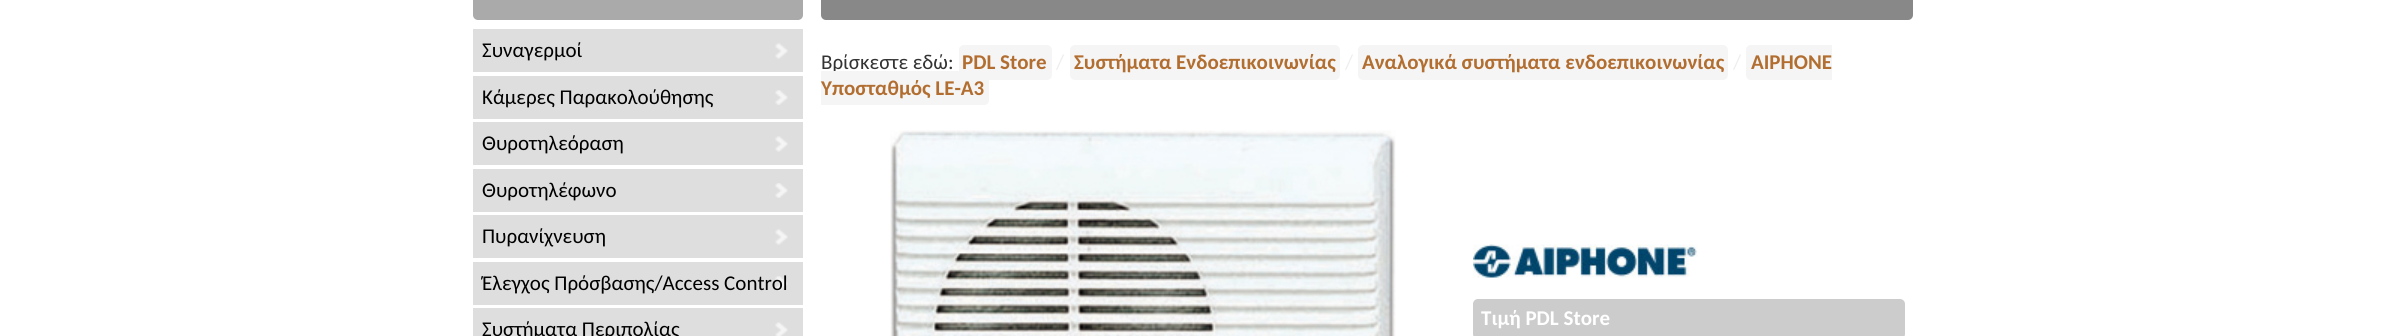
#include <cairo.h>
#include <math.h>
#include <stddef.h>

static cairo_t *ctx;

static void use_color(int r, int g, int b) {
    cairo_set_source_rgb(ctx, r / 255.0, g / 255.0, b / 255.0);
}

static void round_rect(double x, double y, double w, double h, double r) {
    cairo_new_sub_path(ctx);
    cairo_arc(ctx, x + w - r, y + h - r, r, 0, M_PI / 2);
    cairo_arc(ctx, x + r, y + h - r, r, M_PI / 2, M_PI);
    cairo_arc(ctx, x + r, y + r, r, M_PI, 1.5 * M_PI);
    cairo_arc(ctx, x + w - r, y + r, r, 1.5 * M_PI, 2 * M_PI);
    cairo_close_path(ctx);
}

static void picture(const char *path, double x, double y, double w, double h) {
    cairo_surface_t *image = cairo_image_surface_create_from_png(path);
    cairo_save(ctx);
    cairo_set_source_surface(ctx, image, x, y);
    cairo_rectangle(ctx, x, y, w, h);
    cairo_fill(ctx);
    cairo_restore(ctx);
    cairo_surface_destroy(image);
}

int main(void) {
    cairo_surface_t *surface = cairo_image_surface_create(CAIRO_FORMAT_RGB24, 2384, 336);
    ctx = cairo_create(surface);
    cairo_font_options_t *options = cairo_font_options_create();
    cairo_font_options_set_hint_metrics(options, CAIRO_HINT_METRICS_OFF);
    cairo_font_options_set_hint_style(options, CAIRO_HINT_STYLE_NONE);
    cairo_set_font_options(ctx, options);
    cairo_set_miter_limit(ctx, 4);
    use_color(255, 255, 255);
    cairo_paint(ctx);
    use_color(170, 170, 170);
    round_rect(473, -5, 330, 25, 5);
    cairo_fill(ctx);
    use_color(222, 222, 222);
    cairo_rectangle(ctx, 473, 29, 330, 43);
    cairo_fill(ctx);
    picture("img1.png", 775, 43, 13, 16);
    cairo_select_font_face(ctx, "Carlito", CAIRO_FONT_SLANT_NORMAL, CAIRO_FONT_WEIGHT_NORMAL);
    cairo_set_font_size(ctx, 21);
    use_color(0, 0, 0);
    cairo_move_to(ctx, 482, 57);
    cairo_show_text(ctx, "Συναγερμοί");
    use_color(222, 222, 222);
    cairo_rectangle(ctx, 473, 76, 330, 43);
    cairo_fill(ctx);
    picture("img2.png", 775, 90, 13, 15);
    use_color(0, 0, 0);
    cairo_move_to(ctx, 482, 104);
    cairo_show_text(ctx, "Κάμερες Παρακολούθησης");
    use_color(222, 222, 222);
    cairo_rectangle(ctx, 473, 122, 330, 43);
    cairo_fill(ctx);
    picture("img1.png", 775, 136, 13, 16);
    use_color(0, 0, 0);
    cairo_move_to(ctx, 482, 150);
    cairo_show_text(ctx, "Θυροτηλεόραση");
    use_color(222, 222, 222);
    cairo_rectangle(ctx, 473, 169, 330, 43);
    cairo_fill(ctx);
    picture("img2.png", 775, 183, 13, 15);
    use_color(0, 0, 0);
    cairo_move_to(ctx, 482, 197);
    cairo_show_text(ctx, "Θυροτηλέφωνο");
    use_color(222, 222, 222);
    cairo_rectangle(ctx, 473, 215, 330, 43);
    cairo_fill(ctx);
    picture("img1.png", 775, 229, 13, 16);
    use_color(0, 0, 0);
    cairo_move_to(ctx, 482, 243);
    cairo_show_text(ctx, "Πυρανίχνευση");
    use_color(222, 222, 222);
    cairo_rectangle(ctx, 473, 262, 330, 43);
    cairo_fill(ctx);
    picture("img2.png", 775, 276, 13, 15);
    use_color(0, 0, 0);
    cairo_move_to(ctx, 482, 290);
    cairo_show_text(ctx, "Έλεγχος Πρόσβασης/Access Control");
    use_color(222, 222, 222);
    cairo_rectangle(ctx, 473, 308, 330, 28);
    cairo_fill(ctx);
    picture("img3.png", 775, 322, 13, 14);
    use_color(0, 0, 0);
    cairo_move_to(ctx, 482, 336);
    cairo_show_text(ctx, "Συστήματα Περιπολίας");
    use_color(136, 136, 136);
    round_rect(821, -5, 1092, 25, 5);
    cairo_fill(ctx);
    use_color(51, 51, 51);
    cairo_move_to(ctx, 821, 69);
    cairo_show_text(ctx, "Βρίσκεστε εδώ:");
    use_color(245, 245, 245);
    round_rect(959, 45, 93, 35, 5);
    cairo_fill(ctx);
    cairo_select_font_face(ctx, "Carlito", CAIRO_FONT_SLANT_NORMAL, CAIRO_FONT_WEIGHT_BOLD);
    use_color(178, 110, 48);
    cairo_move_to(ctx, 962, 69);
    cairo_show_text(ctx, "PDL Store");
    cairo_select_font_face(ctx, "Carlito", CAIRO_FONT_SLANT_NORMAL, CAIRO_FONT_WEIGHT_NORMAL);
    use_color(238, 238, 238);
    cairo_move_to(ctx, 1056, 69);
    cairo_show_text(ctx, "/");
    use_color(245, 245, 245);
    round_rect(1070, 45, 270, 35, 5);
    cairo_fill(ctx);
    cairo_select_font_face(ctx, "Carlito", CAIRO_FONT_SLANT_NORMAL, CAIRO_FONT_WEIGHT_BOLD);
    use_color(178, 110, 48);
    cairo_move_to(ctx, 1074, 69);
    cairo_show_text(ctx, "Συστήματα Ενδοεπικοινωνίας");
    cairo_select_font_face(ctx, "Carlito", CAIRO_FONT_SLANT_NORMAL, CAIRO_FONT_WEIGHT_NORMAL);
    use_color(238, 238, 238);
    cairo_move_to(ctx, 1345, 69);
    cairo_show_text(ctx, "/");
    use_color(245, 245, 245);
    round_rect(1358, 45, 370, 35, 5);
    cairo_fill(ctx);
    cairo_select_font_face(ctx, "Carlito", CAIRO_FONT_SLANT_NORMAL, CAIRO_FONT_WEIGHT_BOLD);
    use_color(178, 110, 48);
    cairo_move_to(ctx, 1362, 69);
    cairo_show_text(ctx, "Αναλογικά συστήματα ενδοεπικοινωνίας");
    cairo_select_font_face(ctx, "Carlito", CAIRO_FONT_SLANT_NORMAL, CAIRO_FONT_WEIGHT_NORMAL);
    use_color(238, 238, 238);
    cairo_move_to(ctx, 1733, 69);
    cairo_show_text(ctx, "/");
    use_color(245, 245, 245);
    cairo_new_path(ctx);
    cairo_move_to(ctx, 1751, 45);
    cairo_line_to(ctx, 1832, 45);
    cairo_line_to(ctx, 1832, 80);
    cairo_line_to(ctx, 1751, 80);
    cairo_curve_to(ctx, 1748, 80, 1746, 78, 1746, 75);
    cairo_line_to(ctx, 1746, 50);
    cairo_curve_to(ctx, 1746, 47, 1748, 45, 1751, 45);
    cairo_close_path(ctx);
    cairo_fill(ctx);
    cairo_select_font_face(ctx, "Carlito", CAIRO_FONT_SLANT_NORMAL, CAIRO_FONT_WEIGHT_BOLD);
    use_color(178, 110, 48);
    cairo_move_to(ctx, 1751, 69);
    cairo_show_text(ctx, "AIPHONE");
    use_color(245, 245, 245);
    cairo_new_path(ctx);
    cairo_move_to(ctx, 821, 71);
    cairo_line_to(ctx, 984, 71);
    cairo_curve_to(ctx, 987, 71, 989, 73, 989, 76);
    cairo_line_to(ctx, 989, 100);
    cairo_curve_to(ctx, 989, 103, 987, 105, 984, 105);
    cairo_line_to(ctx, 821, 105);
    cairo_close_path(ctx);
    cairo_fill(ctx);
    use_color(178, 110, 48);
    cairo_move_to(ctx, 821, 95);
    cairo_show_text(ctx, "Υποσταθμός LE-A3");
    picture("img4.png", 890, 130, 506, 206);
    picture("img5.png", 1473, 244, 225, 34);
    use_color(204, 204, 204);
    round_rect(1473, 299, 432, 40, 5);
    cairo_fill(ctx);
    use_color(255, 255, 255);
    cairo_move_to(ctx, 1481, 325);
    cairo_show_text(ctx, "Τιμή PDL Store");
    cairo_surface_write_to_png(surface, "result.png");
    cairo_font_options_destroy(options);
    cairo_destroy(ctx);
    cairo_surface_destroy(surface);
    return 0;
}
